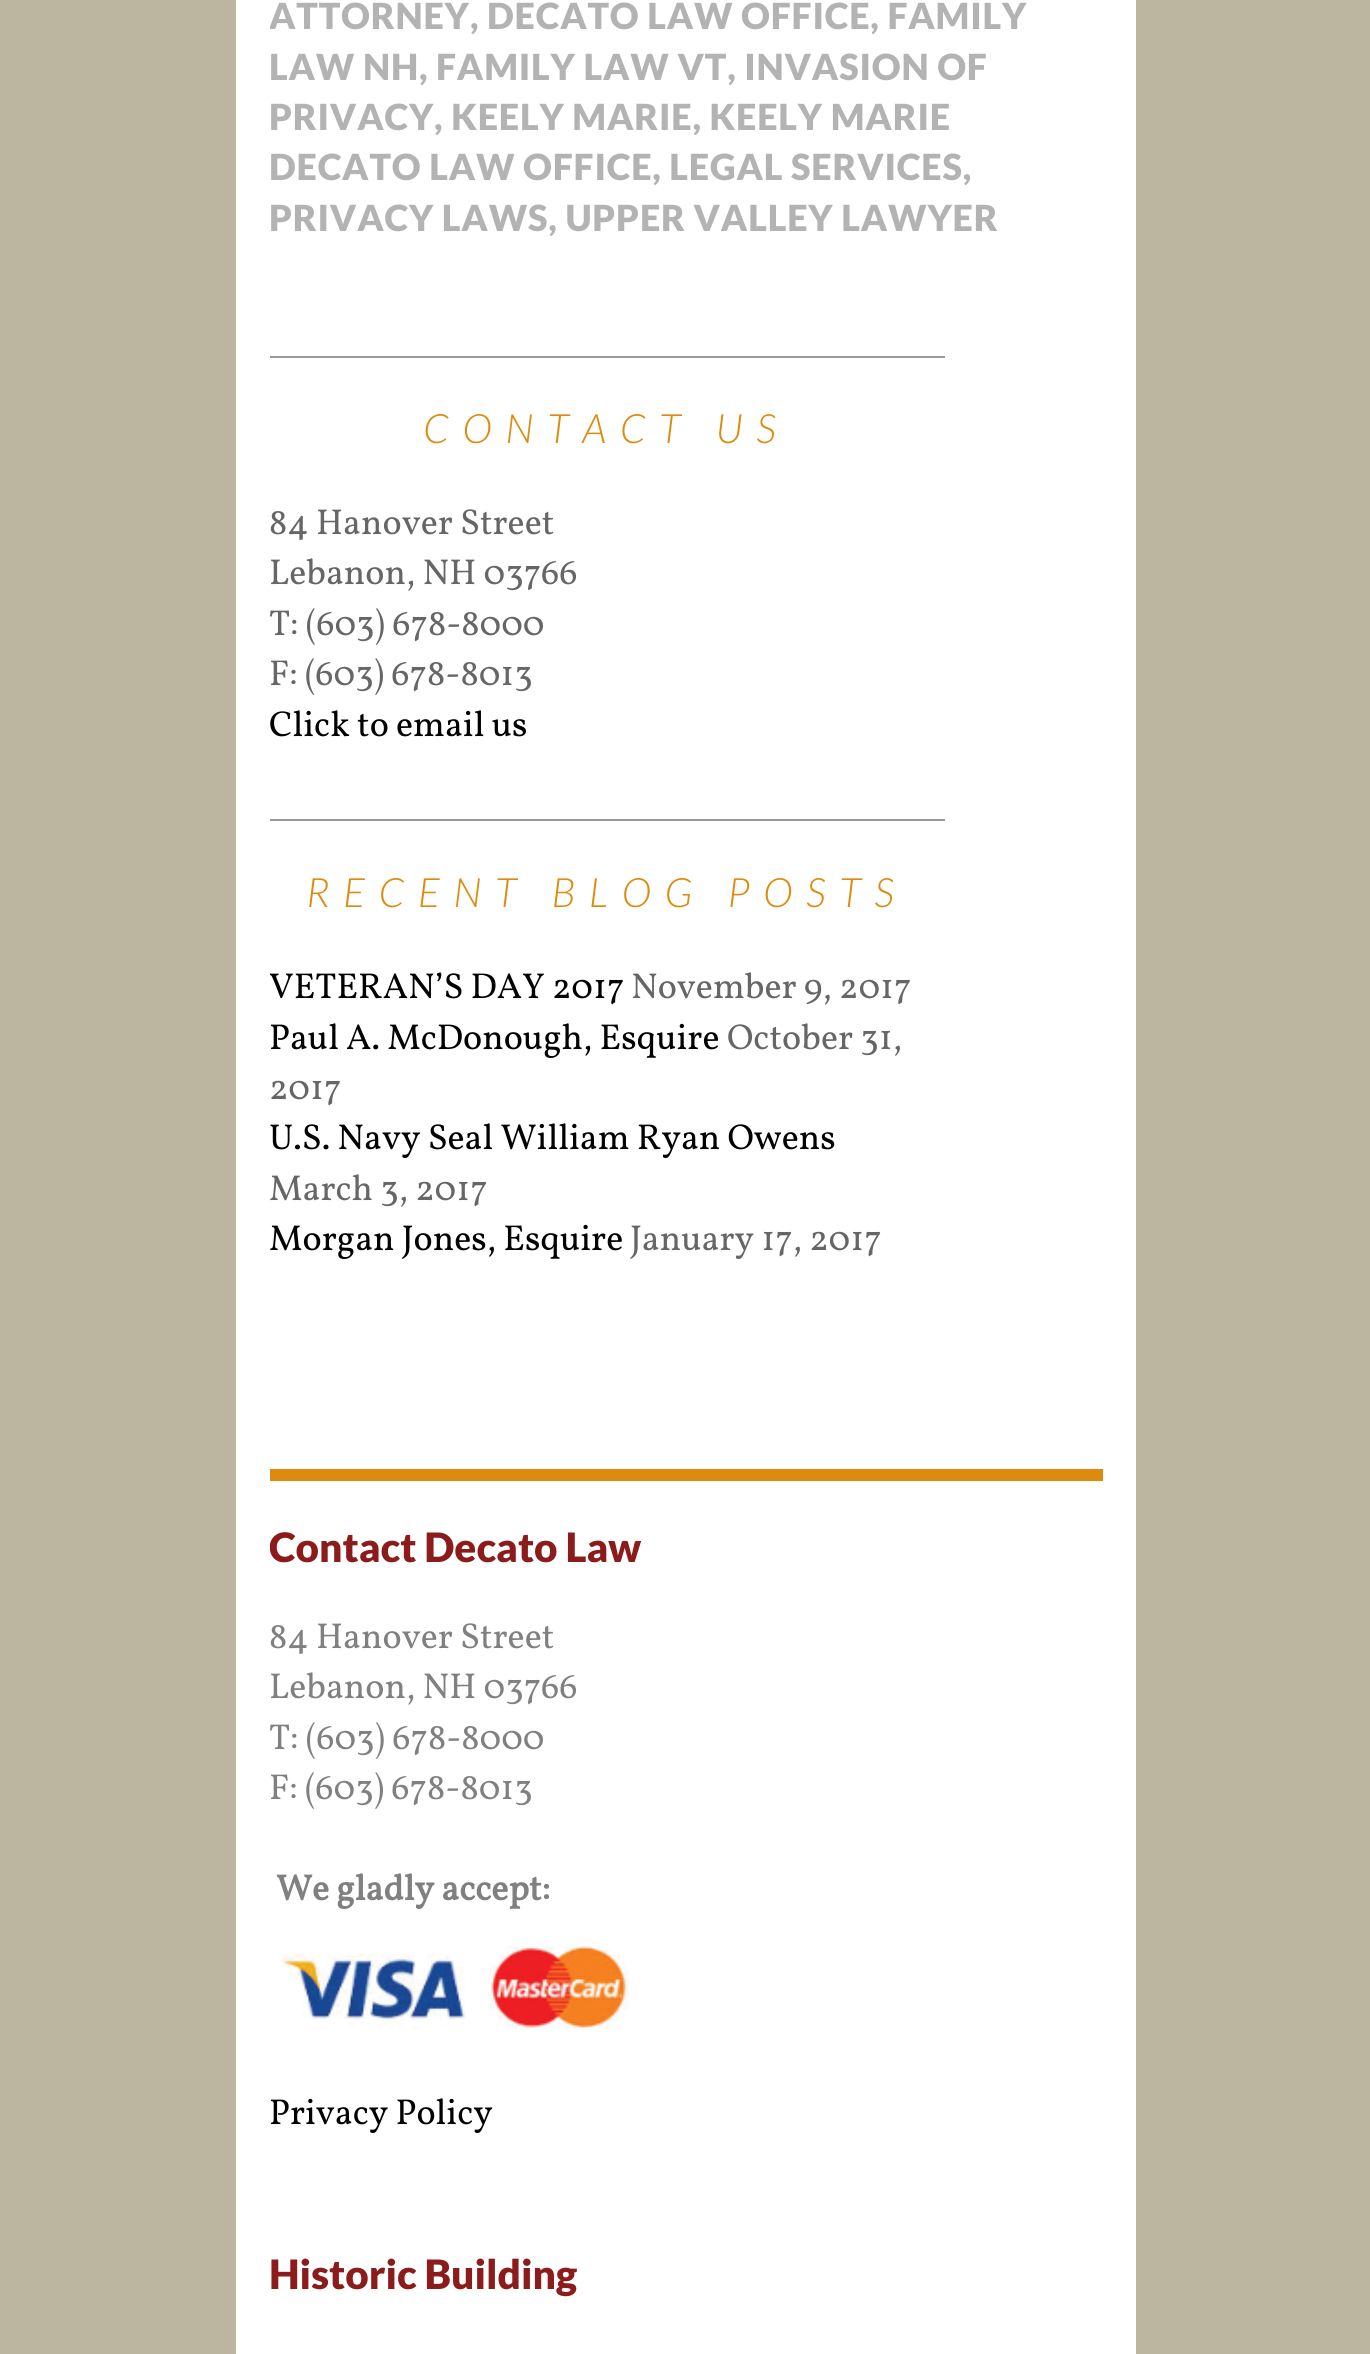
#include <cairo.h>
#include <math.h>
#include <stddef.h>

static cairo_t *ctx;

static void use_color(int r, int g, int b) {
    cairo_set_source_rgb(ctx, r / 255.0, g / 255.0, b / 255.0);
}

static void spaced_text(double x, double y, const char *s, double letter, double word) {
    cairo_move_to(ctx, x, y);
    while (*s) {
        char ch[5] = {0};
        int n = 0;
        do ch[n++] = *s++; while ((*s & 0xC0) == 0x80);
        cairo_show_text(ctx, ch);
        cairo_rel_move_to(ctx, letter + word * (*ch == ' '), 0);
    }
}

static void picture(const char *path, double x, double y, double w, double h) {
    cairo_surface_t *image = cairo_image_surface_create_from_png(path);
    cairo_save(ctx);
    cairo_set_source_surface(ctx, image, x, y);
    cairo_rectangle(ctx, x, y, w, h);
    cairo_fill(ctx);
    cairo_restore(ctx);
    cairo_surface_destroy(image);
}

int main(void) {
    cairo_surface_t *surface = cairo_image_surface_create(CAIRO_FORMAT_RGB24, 1370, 2354);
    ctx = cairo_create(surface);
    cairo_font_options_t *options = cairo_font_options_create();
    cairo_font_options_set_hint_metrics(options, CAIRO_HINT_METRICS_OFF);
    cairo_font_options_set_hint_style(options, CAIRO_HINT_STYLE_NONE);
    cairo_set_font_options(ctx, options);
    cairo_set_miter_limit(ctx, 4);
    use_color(188, 182, 160);
    cairo_paint(ctx);
    use_color(255, 255, 255);
    cairo_rectangle(ctx, 236, 0, 900, 2354);
    cairo_fill(ctx);
    cairo_save(ctx);
    cairo_rectangle(ctx, 270, 0, 833, 288);
    cairo_clip(ctx);
    cairo_select_font_face(ctx, "Lato Black", CAIRO_FONT_SLANT_NORMAL, CAIRO_FONT_WEIGHT_NORMAL);
    cairo_set_font_size(ctx, 36);
    use_color(179, 179, 179);
    spaced_text(269, 29, "ATTORNEY", 0.8, 0);
    cairo_restore(ctx);
    cairo_select_font_face(ctx, "Lato Black", CAIRO_FONT_SLANT_NORMAL, CAIRO_FONT_WEIGHT_NORMAL);
    cairo_set_font_size(ctx, 36);
    use_color(179, 179, 179);
    spaced_text(470, 29, ", DECATO LAW OFFICE, FAMILY", 0.8, 0);
    spaced_text(269, 80, "LAW NH, FAMILY LAW VT, INVASION OF", 0.8, 0);
    spaced_text(269, 130, "PRIVACY, KEELY MARIE, KEELY MARIE", 0.8, 0);
    spaced_text(269, 180, "DECATO LAW OFFICE, LEGAL SERVICES,", 0.8, 0);
    spaced_text(269, 231, "PRIVACY LAWS, UPPER VALLEY LAWYER", 0.8, 0);
    use_color(153, 153, 153);
    cairo_rectangle(ctx, 270, 356, 675, 2);
    cairo_fill(ctx);
    cairo_select_font_face(ctx, "Lato Light", CAIRO_FONT_SLANT_ITALIC, CAIRO_FONT_WEIGHT_NORMAL);
    cairo_set_font_size(ctx, 40.5);
    use_color(221, 139, 15);
    spaced_text(423, 443, "CONTACT US", 13.5, 0);
    cairo_select_font_face(ctx, "Vollkorn", CAIRO_FONT_SLANT_NORMAL, CAIRO_FONT_WEIGHT_NORMAL);
    cairo_set_font_size(ctx, 36);
    use_color(102, 102, 102);
    cairo_move_to(ctx, 269, 534);
    cairo_show_text(ctx, "84 Hanover Street");
    cairo_move_to(ctx, 269, 584);
    cairo_show_text(ctx, "Lebanon, NH 03766");
    cairo_move_to(ctx, 269, 635);
    cairo_show_text(ctx, "T: (603) 678-8000");
    cairo_move_to(ctx, 269, 685);
    cairo_show_text(ctx, "F: (603) 678-8013");
    use_color(0, 0, 0);
    cairo_move_to(ctx, 269, 736);
    cairo_show_text(ctx, "Click to email us");
    use_color(153, 153, 153);
    cairo_rectangle(ctx, 270, 819, 675, 2);
    cairo_fill(ctx);
    cairo_select_font_face(ctx, "Lato Light", CAIRO_FONT_SLANT_ITALIC, CAIRO_FONT_WEIGHT_NORMAL);
    cairo_set_font_size(ctx, 40.5);
    use_color(221, 139, 15);
    spaced_text(306, 907, "RECENT BLOG POSTS", 13.5, 0);
    cairo_select_font_face(ctx, "Vollkorn", CAIRO_FONT_SLANT_NORMAL, CAIRO_FONT_WEIGHT_NORMAL);
    cairo_set_font_size(ctx, 36);
    use_color(0, 0, 0);
    cairo_move_to(ctx, 269, 998);
    cairo_show_text(ctx, "VETERAN’S DAY 2017");
    use_color(102, 102, 102);
    cairo_move_to(ctx, 631, 998);
    cairo_show_text(ctx, "November 9, 2017");
    use_color(0, 0, 0);
    cairo_move_to(ctx, 269, 1049);
    cairo_show_text(ctx, "Paul A. McDonough, Esquire");
    use_color(102, 102, 102);
    cairo_move_to(ctx, 727, 1049);
    cairo_show_text(ctx, "October 31,");
    cairo_move_to(ctx, 269, 1099);
    cairo_show_text(ctx, "2017");
    use_color(0, 0, 0);
    cairo_move_to(ctx, 269, 1149);
    cairo_show_text(ctx, "U.S. Navy Seal William Ryan Owens");
    use_color(102, 102, 102);
    cairo_move_to(ctx, 269, 1200);
    cairo_show_text(ctx, "March 3, 2017");
    use_color(0, 0, 0);
    cairo_move_to(ctx, 269, 1250);
    cairo_show_text(ctx, "Morgan Jones, Esquire");
    use_color(102, 102, 102);
    cairo_move_to(ctx, 630, 1250);
    cairo_show_text(ctx, "January 17, 2017");
    use_color(221, 139, 15);
    cairo_rectangle(ctx, 270, 1469, 833, 12);
    cairo_fill(ctx);
    cairo_save(ctx);
    cairo_rectangle(ctx, 270, 1481, 833, 659);
    cairo_clip(ctx);
    cairo_select_font_face(ctx, "Lato Black", CAIRO_FONT_SLANT_NORMAL, CAIRO_FONT_WEIGHT_NORMAL);
    cairo_set_font_size(ctx, 40.5);
    use_color(140, 28, 28);
    cairo_move_to(ctx, 269, 1562);
    cairo_show_text(ctx, "Contact Decato Law");
    cairo_restore(ctx);
    use_color(128, 128, 128);
    cairo_move_to(ctx, 269, 1648);
    cairo_show_text(ctx, "84 Hanover Street");
    cairo_move_to(ctx, 269, 1698);
    cairo_show_text(ctx, "Lebanon, NH 03766");
    cairo_move_to(ctx, 269, 1749);
    cairo_show_text(ctx, "T: (603) 678-8000");
    cairo_move_to(ctx, 269, 1799);
    cairo_show_text(ctx, "F: (603) 678-8013");
    cairo_select_font_face(ctx, "Vollkorn", CAIRO_FONT_SLANT_NORMAL, CAIRO_FONT_WEIGHT_BOLD);
    cairo_move_to(ctx, 276, 1900);
    cairo_show_text(ctx, "We gladly accept:");
    picture("img1.png", 281, 1945, 348, 85);
    cairo_select_font_face(ctx, "Vollkorn", CAIRO_FONT_SLANT_NORMAL, CAIRO_FONT_WEIGHT_NORMAL);
    use_color(0, 0, 0);
    cairo_move_to(ctx, 269, 2124);
    cairo_show_text(ctx, "Privacy Policy");
    cairo_select_font_face(ctx, "Lato Black", CAIRO_FONT_SLANT_NORMAL, CAIRO_FONT_WEIGHT_NORMAL);
    cairo_set_font_size(ctx, 40.5);
    use_color(140, 28, 28);
    cairo_move_to(ctx, 269, 2289);
    cairo_show_text(ctx, "Historic Building");
    cairo_surface_write_to_png(surface, "result.png");
    cairo_font_options_destroy(options);
    cairo_destroy(ctx);
    cairo_surface_destroy(surface);
    return 0;
}
